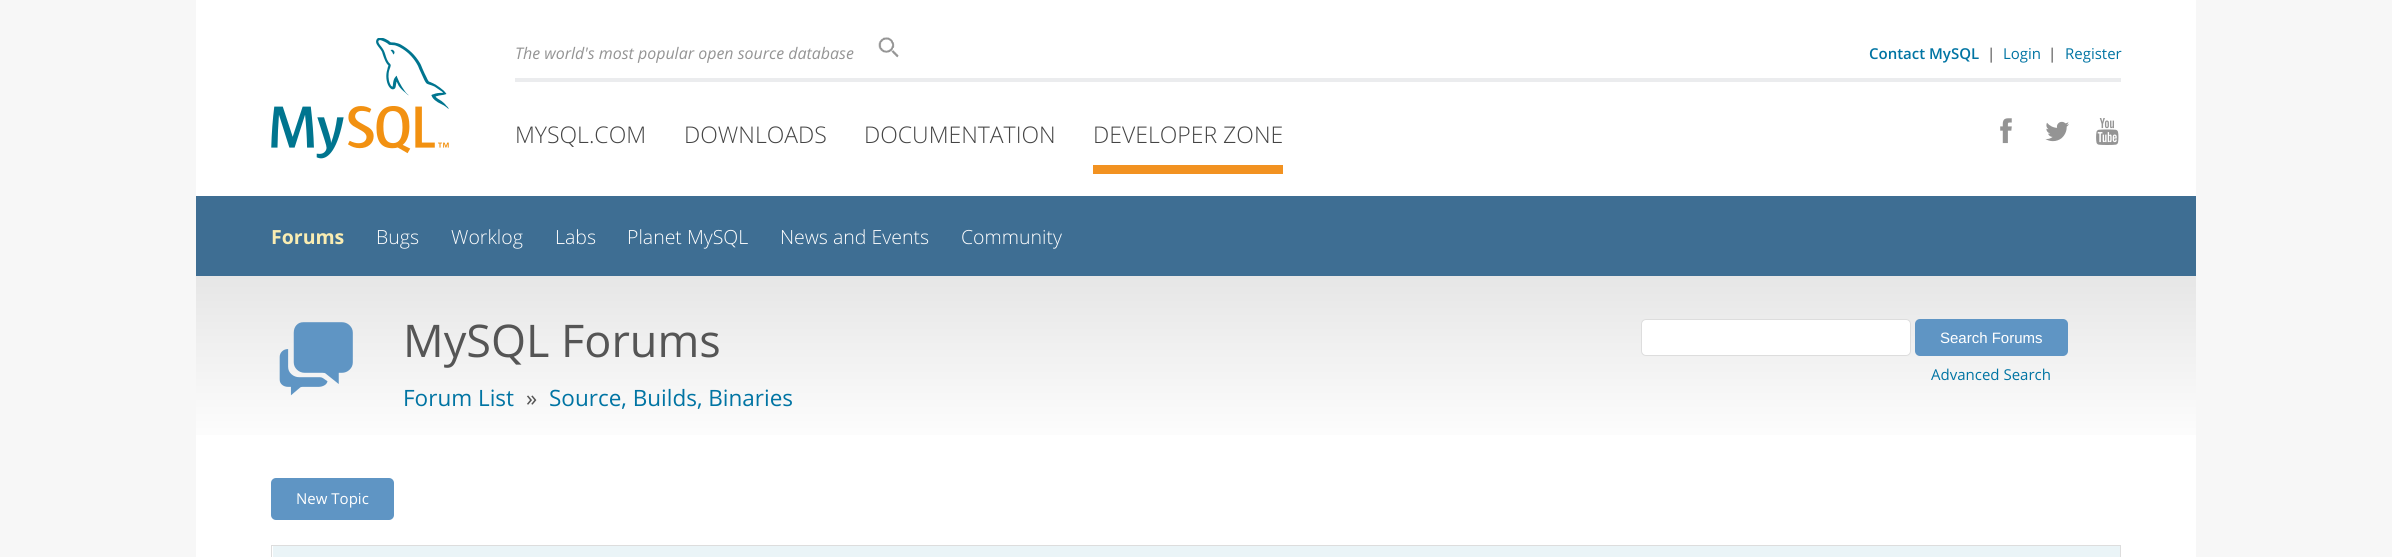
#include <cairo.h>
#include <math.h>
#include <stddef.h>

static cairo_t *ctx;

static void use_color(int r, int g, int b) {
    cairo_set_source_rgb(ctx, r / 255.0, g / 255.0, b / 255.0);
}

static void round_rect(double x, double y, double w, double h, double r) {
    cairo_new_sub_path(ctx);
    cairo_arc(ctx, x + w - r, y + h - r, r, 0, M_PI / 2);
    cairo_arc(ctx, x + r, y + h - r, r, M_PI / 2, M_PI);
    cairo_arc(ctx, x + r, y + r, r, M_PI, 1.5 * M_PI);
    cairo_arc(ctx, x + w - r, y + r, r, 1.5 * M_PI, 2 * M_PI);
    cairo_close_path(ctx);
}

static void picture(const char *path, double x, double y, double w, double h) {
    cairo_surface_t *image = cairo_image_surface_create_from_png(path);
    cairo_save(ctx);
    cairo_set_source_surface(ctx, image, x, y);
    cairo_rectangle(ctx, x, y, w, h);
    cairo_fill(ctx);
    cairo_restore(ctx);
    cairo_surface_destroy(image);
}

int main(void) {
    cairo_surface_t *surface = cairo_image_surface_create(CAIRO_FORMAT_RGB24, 2392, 557);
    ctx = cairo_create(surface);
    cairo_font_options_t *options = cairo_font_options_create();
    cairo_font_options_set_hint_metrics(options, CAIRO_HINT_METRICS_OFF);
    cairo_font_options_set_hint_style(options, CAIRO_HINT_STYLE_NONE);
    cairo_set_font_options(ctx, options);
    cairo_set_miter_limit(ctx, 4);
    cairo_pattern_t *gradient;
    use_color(247, 247, 247);
    cairo_paint(ctx);
    use_color(255, 255, 255);
    cairo_rectangle(ctx, 196, 0, 2000, 557);
    cairo_fill(ctx);
    picture("img1.png", 271, 38, 178, 121);
    use_color(235, 236, 238);
    cairo_rectangle(ctx, 515, 78, 1606, 4);
    cairo_fill(ctx);
    cairo_select_font_face(ctx, "Open Sans", CAIRO_FONT_SLANT_ITALIC, CAIRO_FONT_WEIGHT_NORMAL);
    cairo_set_font_size(ctx, 16);
    use_color(148, 148, 148);
    cairo_move_to(ctx, 515, 59);
    cairo_show_text(ctx, "The world's most popular open source database");
    picture("img2.png", 878, 37, 21, 21);
    cairo_select_font_face(ctx, "Open Sans SemiBold", CAIRO_FONT_SLANT_NORMAL, CAIRO_FONT_WEIGHT_NORMAL);
    cairo_set_font_size(ctx, 15);
    use_color(0, 116, 163);
    cairo_move_to(ctx, 1869, 59);
    cairo_show_text(ctx, "Contact MySQL");
    cairo_select_font_face(ctx, "Open Sans", CAIRO_FONT_SLANT_NORMAL, CAIRO_FONT_WEIGHT_NORMAL);
    use_color(68, 68, 68);
    cairo_move_to(ctx, 1987, 59);
    cairo_show_text(ctx, "|");
    use_color(0, 116, 163);
    cairo_move_to(ctx, 2003, 59);
    cairo_show_text(ctx, "Login");
    use_color(68, 68, 68);
    cairo_move_to(ctx, 2048, 59);
    cairo_show_text(ctx, "|");
    use_color(0, 116, 163);
    cairo_move_to(ctx, 2065, 59);
    cairo_show_text(ctx, "Register");
    cairo_select_font_face(ctx, "Open Sans Light", CAIRO_FONT_SLANT_NORMAL, CAIRO_FONT_WEIGHT_NORMAL);
    cairo_set_font_size(ctx, 23);
    use_color(68, 68, 68);
    cairo_move_to(ctx, 515, 143);
    cairo_show_text(ctx, "MYSQL.COM");
    cairo_move_to(ctx, 684, 143);
    cairo_show_text(ctx, "DOWNLOADS");
    cairo_move_to(ctx, 864, 143);
    cairo_show_text(ctx, "DOCUMENTATION");
    use_color(242, 146, 33);
    cairo_rectangle(ctx, 1093, 165, 190, 9);
    cairo_fill(ctx);
    use_color(68, 68, 68);
    cairo_move_to(ctx, 1093, 143);
    cairo_show_text(ctx, "DEVELOPER ZONE");
    picture("img3.png", 2000, 118, 12, 26);
    picture("img4.png", 2045, 121, 24, 21);
    picture("img5.png", 2096, 118, 23, 27);
    use_color(62, 110, 147);
    cairo_rectangle(ctx, 196, 196, 2000, 80);
    cairo_fill(ctx);
    cairo_select_font_face(ctx, "Open Sans", CAIRO_FONT_SLANT_NORMAL, CAIRO_FONT_WEIGHT_BOLD);
    cairo_set_font_size(ctx, 19.5);
    use_color(250, 237, 178);
    cairo_move_to(ctx, 271, 244);
    cairo_show_text(ctx, "Forums");
    cairo_select_font_face(ctx, "Open Sans Light", CAIRO_FONT_SLANT_NORMAL, CAIRO_FONT_WEIGHT_NORMAL);
    use_color(255, 255, 255);
    cairo_move_to(ctx, 376, 244);
    cairo_show_text(ctx, "Bugs");
    cairo_move_to(ctx, 451, 244);
    cairo_show_text(ctx, "Worklog");
    cairo_move_to(ctx, 555, 244);
    cairo_show_text(ctx, "Labs");
    cairo_move_to(ctx, 627, 244);
    cairo_show_text(ctx, "Planet MySQL");
    cairo_move_to(ctx, 780, 244);
    cairo_show_text(ctx, "News and Events");
    cairo_move_to(ctx, 961, 244);
    cairo_show_text(ctx, "Community");
    gradient = cairo_pattern_create_linear(1196, 276, 1196, 453);
    cairo_pattern_add_color_stop_rgba(gradient, 0, 0.902, 0.902, 0.902, 1);
    cairo_pattern_add_color_stop_rgba(gradient, 1, 1, 1, 1, 1);
    cairo_set_source(ctx, gradient);
    cairo_pattern_destroy(gradient);
    cairo_rectangle(ctx, 196, 276, 2000, 159);
    cairo_fill(ctx);
    picture("img6.png", 279, 322, 74, 74);
    cairo_select_font_face(ctx, "Open Sans", CAIRO_FONT_SLANT_NORMAL, CAIRO_FONT_WEIGHT_NORMAL);
    cairo_set_font_size(ctx, 45);
    use_color(85, 85, 85);
    cairo_move_to(ctx, 403, 357);
    cairo_show_text(ctx, "MySQL Forums");
    cairo_set_font_size(ctx, 22.5);
    use_color(0, 116, 163);
    cairo_move_to(ctx, 403, 406);
    cairo_show_text(ctx, "Forum List");
    use_color(85, 85, 85);
    cairo_move_to(ctx, 526, 406);
    cairo_show_text(ctx, "»");
    use_color(0, 116, 163);
    cairo_move_to(ctx, 549, 406);
    cairo_show_text(ctx, "Source, Builds, Binaries");
    use_color(255, 255, 255);
    round_rect(1641.5, 319.5, 269, 36, 4.5);
    cairo_fill_preserve(ctx);
    use_color(221, 221, 221);
    cairo_set_line_width(ctx, 1);
    cairo_stroke(ctx);
    use_color(95, 149, 196);
    round_rect(1915, 319, 153, 37, 5);
    cairo_fill(ctx);
    cairo_select_font_face(ctx, "Liberation Sans", CAIRO_FONT_SLANT_NORMAL, CAIRO_FONT_WEIGHT_NORMAL);
    cairo_set_font_size(ctx, 15);
    use_color(255, 255, 255);
    cairo_move_to(ctx, 1940, 343);
    cairo_show_text(ctx, "Search Forums");
    cairo_select_font_face(ctx, "Open Sans", CAIRO_FONT_SLANT_NORMAL, CAIRO_FONT_WEIGHT_NORMAL);
    use_color(0, 116, 163);
    cairo_move_to(ctx, 1931, 380);
    cairo_show_text(ctx, "Advanced Search");
    use_color(95, 149, 196);
    round_rect(271, 478, 123, 42, 5);
    cairo_fill(ctx);
    use_color(255, 255, 255);
    cairo_move_to(ctx, 296, 504);
    cairo_show_text(ctx, "New Topic");
    cairo_rectangle(ctx, 271.5, 545.5, 1849, 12);
    use_color(221, 221, 221);
    cairo_stroke(ctx);
    use_color(234, 244, 247);
    cairo_rectangle(ctx, 273, 546, 1847, 11);
    cairo_fill(ctx);
    cairo_surface_write_to_png(surface, "result.png");
    cairo_font_options_destroy(options);
    cairo_destroy(ctx);
    cairo_surface_destroy(surface);
    return 0;
}
